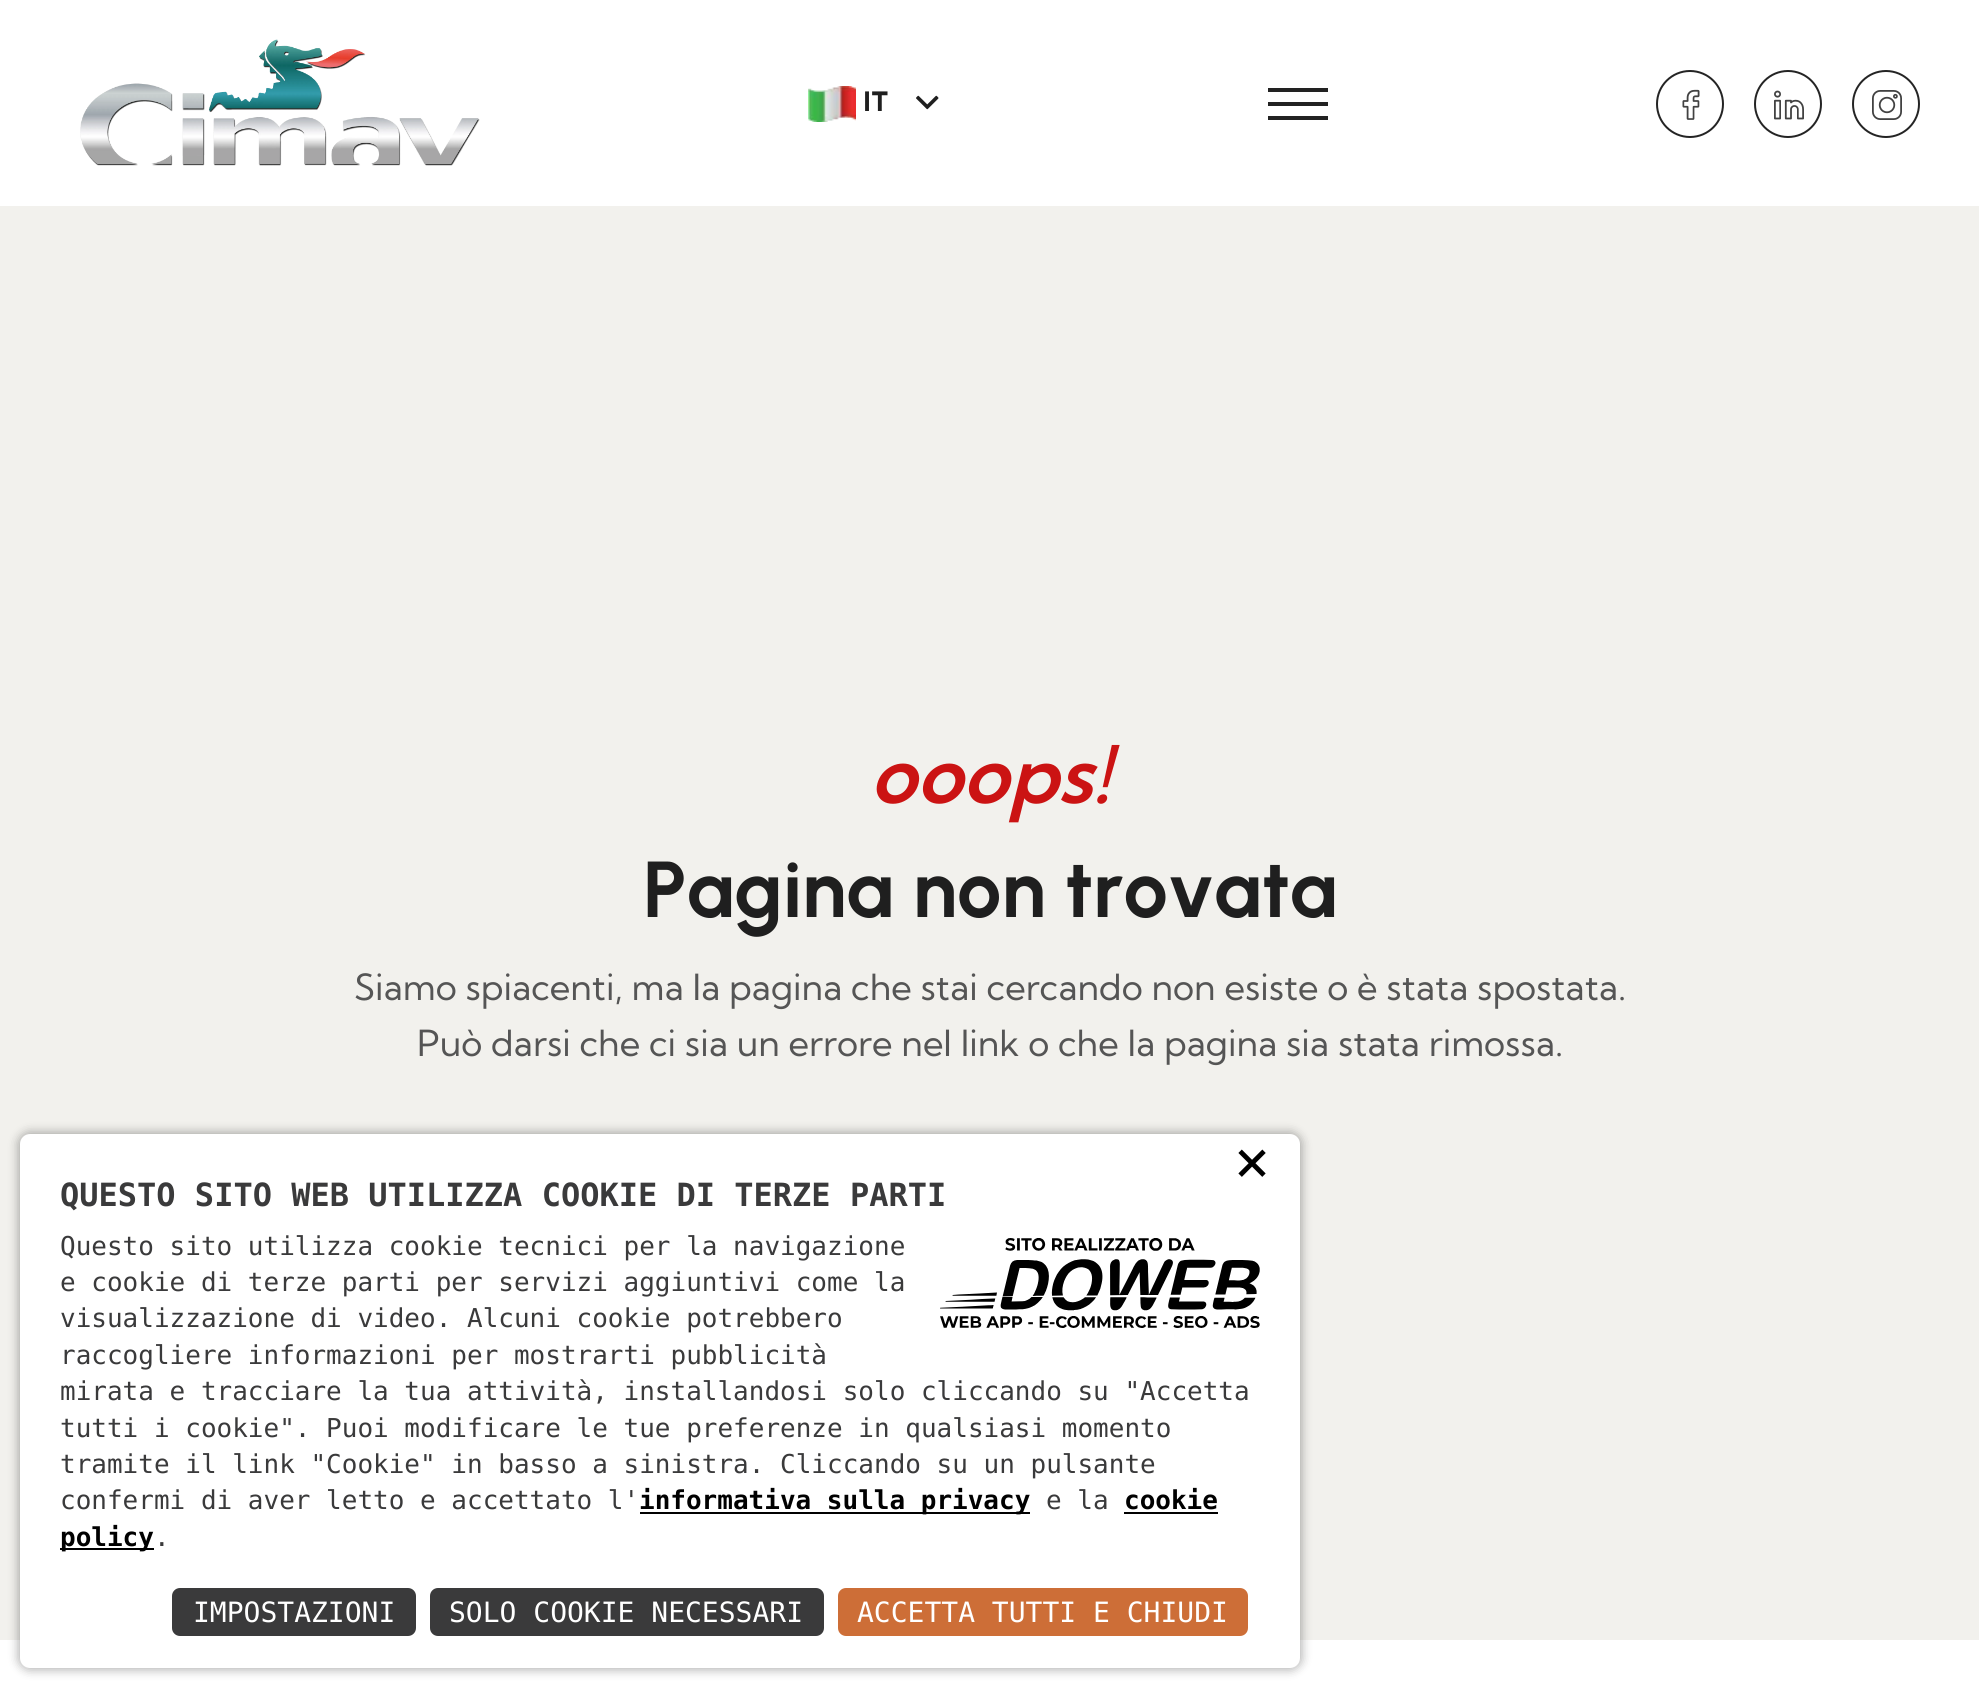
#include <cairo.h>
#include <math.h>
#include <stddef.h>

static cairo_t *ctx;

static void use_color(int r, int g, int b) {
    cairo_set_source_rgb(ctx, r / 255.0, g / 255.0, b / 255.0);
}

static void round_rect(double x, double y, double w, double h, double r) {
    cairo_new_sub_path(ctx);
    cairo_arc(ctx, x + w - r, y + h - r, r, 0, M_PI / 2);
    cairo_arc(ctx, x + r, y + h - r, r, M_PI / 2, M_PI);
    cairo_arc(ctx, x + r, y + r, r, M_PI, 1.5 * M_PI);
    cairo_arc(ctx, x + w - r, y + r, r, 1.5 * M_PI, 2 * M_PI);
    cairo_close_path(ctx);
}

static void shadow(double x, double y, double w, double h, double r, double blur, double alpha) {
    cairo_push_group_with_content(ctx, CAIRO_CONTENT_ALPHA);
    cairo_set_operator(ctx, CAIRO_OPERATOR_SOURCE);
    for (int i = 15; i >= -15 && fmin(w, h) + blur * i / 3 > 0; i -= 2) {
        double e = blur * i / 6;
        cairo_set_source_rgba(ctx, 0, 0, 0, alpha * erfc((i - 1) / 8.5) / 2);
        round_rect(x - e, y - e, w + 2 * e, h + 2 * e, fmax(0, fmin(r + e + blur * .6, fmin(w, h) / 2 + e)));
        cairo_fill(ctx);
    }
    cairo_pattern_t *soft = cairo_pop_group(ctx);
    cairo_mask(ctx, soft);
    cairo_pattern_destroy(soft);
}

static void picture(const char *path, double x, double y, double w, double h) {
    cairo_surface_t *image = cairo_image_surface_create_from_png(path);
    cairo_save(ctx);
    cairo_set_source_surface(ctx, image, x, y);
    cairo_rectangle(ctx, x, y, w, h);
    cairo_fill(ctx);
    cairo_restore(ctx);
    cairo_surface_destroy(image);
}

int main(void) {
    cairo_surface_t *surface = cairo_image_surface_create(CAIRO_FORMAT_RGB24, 1979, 1688);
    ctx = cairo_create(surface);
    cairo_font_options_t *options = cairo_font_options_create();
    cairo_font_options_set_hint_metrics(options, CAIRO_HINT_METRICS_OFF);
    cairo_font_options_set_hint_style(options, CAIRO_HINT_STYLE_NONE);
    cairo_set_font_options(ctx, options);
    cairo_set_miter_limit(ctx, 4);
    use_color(242, 241, 237);
    cairo_paint(ctx);
    use_color(255, 255, 255);
    cairo_rectangle(ctx, 0, 0, 1979, 206);
    cairo_fill(ctx);
    picture("img1.png", 80, 39, 400, 127);
    picture("img2.png", 808, 86, 48, 36);
    cairo_select_font_face(ctx, "Urbanist ExtraBold", CAIRO_FONT_SLANT_NORMAL, CAIRO_FONT_WEIGHT_NORMAL);
    cairo_set_font_size(ctx, 28);
    use_color(31, 31, 31);
    cairo_move_to(ctx, 863, 111);
    cairo_show_text(ctx, "IT");
    picture("img3.png", 916, 95, 23, 15);
    use_color(34, 34, 34);
    cairo_rectangle(ctx, 1268, 88, 60, 4);
    cairo_fill(ctx);
    cairo_rectangle(ctx, 1268, 102, 60, 4);
    cairo_fill(ctx);
    cairo_rectangle(ctx, 1268, 116, 60, 4);
    cairo_fill(ctx);
    cairo_arc(ctx, 1690, 104, 33, 0, 2 * M_PI);
    use_color(36, 36, 36);
    cairo_stroke(ctx);
    picture("img4.png", 1682, 89, 18, 31);
    cairo_arc(ctx, 1788, 104, 33, 0, 2 * M_PI);
    cairo_stroke(ctx);
    picture("img5.png", 1774, 90, 30, 30);
    cairo_arc(ctx, 1886, 104, 33, 0, 2 * M_PI);
    cairo_stroke(ctx);
    picture("img6.png", 1872, 90, 30, 30);
    cairo_select_font_face(ctx, "Kumbh Sans SemiBold", CAIRO_FONT_SLANT_ITALIC, CAIRO_FONT_WEIGHT_NORMAL);
    cairo_set_font_size(ctx, 79.25);
    use_color(203, 19, 19);
    cairo_move_to(ctx, 870, 803);
    cairo_show_text(ctx, "ooops!");
    cairo_select_font_face(ctx, "Urbanist", CAIRO_FONT_SLANT_NORMAL, CAIRO_FONT_WEIGHT_BOLD);
    use_color(31, 31, 31);
    cairo_move_to(ctx, 643, 917);
    cairo_show_text(ctx, "Pagina non trovata");
    cairo_select_font_face(ctx, "Kumbh Sans", CAIRO_FONT_SLANT_NORMAL, CAIRO_FONT_WEIGHT_NORMAL);
    cairo_set_font_size(ctx, 36);
    use_color(85, 85, 85);
    cairo_move_to(ctx, 354, 1000);
    cairo_show_text(ctx, "Siamo spiacenti, ma la pagina che stai cercando non esiste o è stata spostata.");
    cairo_move_to(ctx, 417, 1056);
    cairo_show_text(ctx, "Può darsi che ci sia un errore nel link o che la pagina sia stata rimossa.");
    use_color(255, 255, 255);
    cairo_rectangle(ctx, 0, 1640, 1979, 48);
    cairo_fill(ctx);
    use_color(0, 0, 0);
    shadow(18, 1132, 1284, 538, 12, 5, 0.3);
    use_color(255, 255, 255);
    round_rect(20, 1134, 1280, 534, 10);
    cairo_fill(ctx);
    cairo_select_font_face(ctx, "DejaVu Sans Mono", CAIRO_FONT_SLANT_NORMAL, CAIRO_FONT_WEIGHT_NORMAL);
    cairo_set_font_size(ctx, 60);
    use_color(0, 0, 0);
    cairo_move_to(ctx, 1234, 1182);
    cairo_show_text(ctx, "×");
    cairo_select_font_face(ctx, "DejaVu Sans Mono", CAIRO_FONT_SLANT_NORMAL, CAIRO_FONT_WEIGHT_BOLD);
    cairo_set_font_size(ctx, 32);
    use_color(58, 58, 59);
    cairo_move_to(ctx, 60, 1206);
    cairo_show_text(ctx, "QUESTO SITO WEB UTILIZZA COOKIE DI TERZE PARTI");
    cairo_select_font_face(ctx, "DejaVu Sans Mono", CAIRO_FONT_SLANT_NORMAL, CAIRO_FONT_WEIGHT_NORMAL);
    cairo_set_font_size(ctx, 26);
    cairo_move_to(ctx, 60, 1255);
    cairo_show_text(ctx, "Questo sito utilizza cookie tecnici per la navigazione");
    picture("img7.png", 940, 1238, 320, 90);
    cairo_move_to(ctx, 60, 1291);
    cairo_show_text(ctx, "e cookie di terze parti per servizi aggiuntivi come la");
    cairo_move_to(ctx, 60, 1327);
    cairo_show_text(ctx, "visualizzazione di video. Alcuni cookie potrebbero");
    cairo_move_to(ctx, 60, 1364);
    cairo_show_text(ctx, "raccogliere informazioni per mostrarti pubblicità");
    cairo_move_to(ctx, 60, 1400);
    cairo_show_text(ctx, "mirata e tracciare la tua attività, installandosi solo cliccando su \"Accetta");
    cairo_move_to(ctx, 60, 1437);
    cairo_show_text(ctx, "tutti i cookie\". Puoi modificare le tue preferenze in qualsiasi momento");
    cairo_move_to(ctx, 60, 1473);
    cairo_show_text(ctx, "tramite il link \"Cookie\" in basso a sinistra. Cliccando su un pulsante");
    cairo_move_to(ctx, 60, 1509);
    cairo_show_text(ctx, "confermi di aver letto e accettato l'");
    use_color(0, 0, 0);
    cairo_rectangle(ctx, 640, 1512, 390, 2);
    cairo_fill(ctx);
    cairo_select_font_face(ctx, "DejaVu Sans Mono", CAIRO_FONT_SLANT_NORMAL, CAIRO_FONT_WEIGHT_BOLD);
    cairo_move_to(ctx, 639, 1509);
    cairo_show_text(ctx, "informativa sulla privacy");
    cairo_select_font_face(ctx, "DejaVu Sans Mono", CAIRO_FONT_SLANT_NORMAL, CAIRO_FONT_WEIGHT_NORMAL);
    use_color(58, 58, 59);
    cairo_move_to(ctx, 1046, 1509);
    cairo_show_text(ctx, "e la");
    cairo_select_font_face(ctx, "DejaVu Sans Mono", CAIRO_FONT_SLANT_NORMAL, CAIRO_FONT_WEIGHT_BOLD);
    use_color(0, 0, 0);
    cairo_move_to(ctx, 1124, 1509);
    cairo_show_text(ctx, "cookie");
    cairo_rectangle(ctx, 1124, 1512, 94, 2);
    cairo_fill(ctx);
    cairo_rectangle(ctx, 60, 1548, 94, 2);
    cairo_fill(ctx);
    cairo_move_to(ctx, 60, 1546);
    cairo_show_text(ctx, "policy");
    cairo_select_font_face(ctx, "DejaVu Sans Mono", CAIRO_FONT_SLANT_NORMAL, CAIRO_FONT_WEIGHT_NORMAL);
    use_color(58, 58, 59);
    cairo_move_to(ctx, 154, 1546);
    cairo_show_text(ctx, ".");
    round_rect(171, 1587, 246, 50, 9);
    cairo_fill_preserve(ctx);
    use_color(255, 255, 255);
    cairo_stroke(ctx);
    cairo_set_font_size(ctx, 28);
    cairo_move_to(ctx, 193, 1622);
    cairo_show_text(ctx, "IMPOSTAZIONI");
    use_color(58, 58, 59);
    round_rect(429, 1587, 396, 50, 9);
    cairo_fill_preserve(ctx);
    use_color(255, 255, 255);
    cairo_stroke(ctx);
    cairo_move_to(ctx, 449, 1622);
    cairo_show_text(ctx, "SOLO COOKIE NECESSARI");
    use_color(205, 110, 55);
    round_rect(837, 1587, 412, 50, 9);
    cairo_fill_preserve(ctx);
    use_color(255, 255, 255);
    cairo_stroke(ctx);
    cairo_move_to(ctx, 857, 1622);
    cairo_show_text(ctx, "ACCETTA TUTTI E CHIUDI");
    cairo_surface_write_to_png(surface, "result.png");
    cairo_font_options_destroy(options);
    cairo_destroy(ctx);
    cairo_surface_destroy(surface);
    return 0;
}
